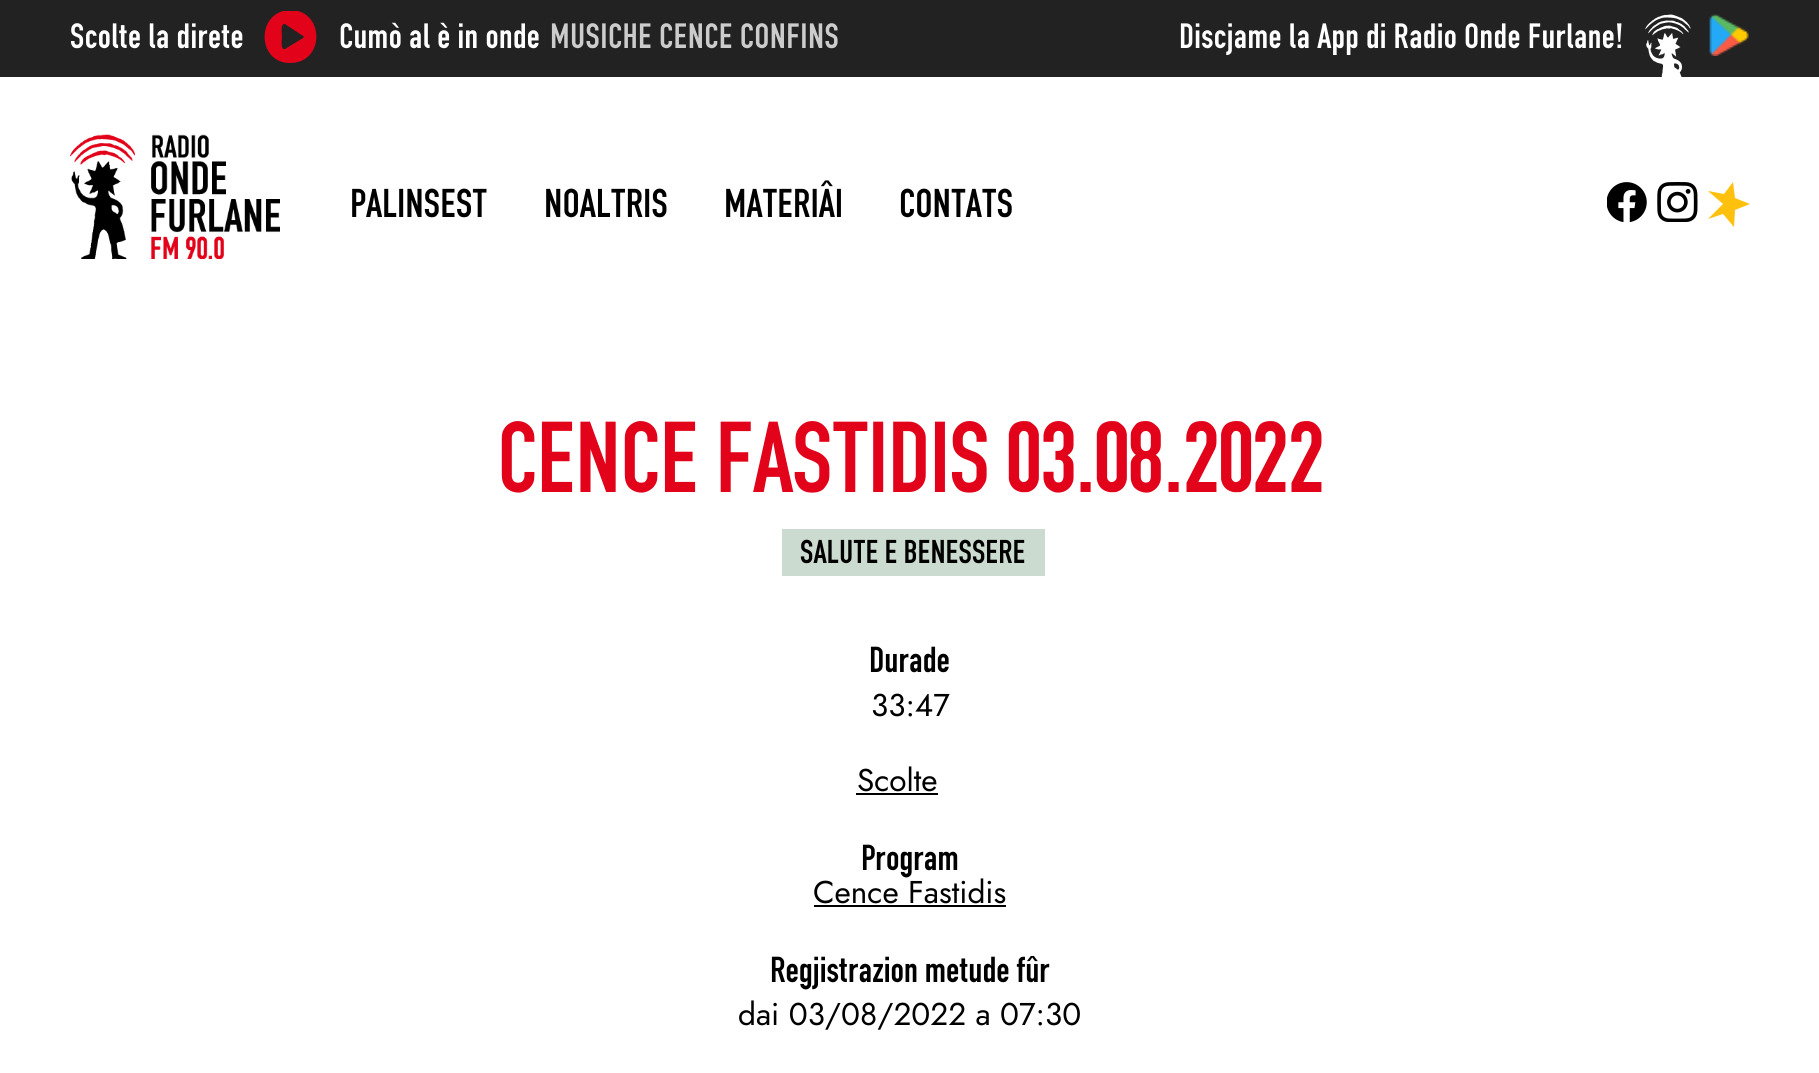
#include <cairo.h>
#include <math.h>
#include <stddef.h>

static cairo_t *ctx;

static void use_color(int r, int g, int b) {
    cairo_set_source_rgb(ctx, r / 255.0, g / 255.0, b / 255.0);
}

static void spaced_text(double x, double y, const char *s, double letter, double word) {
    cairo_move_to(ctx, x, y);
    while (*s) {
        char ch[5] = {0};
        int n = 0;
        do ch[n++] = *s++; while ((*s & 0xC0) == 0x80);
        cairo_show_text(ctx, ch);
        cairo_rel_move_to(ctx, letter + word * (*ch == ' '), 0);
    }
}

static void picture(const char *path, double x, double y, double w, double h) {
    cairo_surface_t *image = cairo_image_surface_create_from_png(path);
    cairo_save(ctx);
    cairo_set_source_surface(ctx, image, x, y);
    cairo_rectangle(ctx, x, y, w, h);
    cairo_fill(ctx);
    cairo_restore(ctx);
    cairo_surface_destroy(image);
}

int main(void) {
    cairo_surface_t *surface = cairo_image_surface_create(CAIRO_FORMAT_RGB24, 1819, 1073);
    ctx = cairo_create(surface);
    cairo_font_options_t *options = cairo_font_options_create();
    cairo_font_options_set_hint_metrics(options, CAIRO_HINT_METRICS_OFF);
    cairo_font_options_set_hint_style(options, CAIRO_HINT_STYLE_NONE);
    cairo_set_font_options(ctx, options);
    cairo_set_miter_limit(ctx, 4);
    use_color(255, 255, 255);
    cairo_paint(ctx);
    use_color(34, 34, 34);
    cairo_rectangle(ctx, 0, 0, 1819, 77);
    cairo_fill(ctx);
    cairo_select_font_face(ctx, "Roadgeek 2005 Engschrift", CAIRO_FONT_SLANT_NORMAL, CAIRO_FONT_WEIGHT_NORMAL);
    cairo_set_font_size(ctx, 36.75);
    use_color(255, 255, 255);
    spaced_text(70, 48, "Scolte la direte", 0.35, 0);
    cairo_save(ctx);
    cairo_rectangle(ctx, 264, 11, 53, 52);
    cairo_clip(ctx);
    use_color(226, 3, 26);
    cairo_new_path(ctx);
    cairo_move_to(ctx, 290, 63);
    cairo_curve_to(ctx, 256, 63, 256, 10, 291, 10);
    cairo_curve_to(ctx, 325, 11, 325, 63, 290, 63);
    cairo_close_path(ctx);
    cairo_move_to(ctx, 282, 37);
    cairo_curve_to(ctx, 282, 39, 280, 50, 285, 49);
    cairo_line_to(ctx, 303, 38);
    cairo_line_to(ctx, 304, 37);
    cairo_line_to(ctx, 303, 36);
    cairo_line_to(ctx, 285, 24);
    cairo_curve_to(ctx, 280, 23, 282, 34, 282, 37);
    cairo_close_path(ctx);
    cairo_fill(ctx);
    cairo_restore(ctx);
    spaced_text(339, 48, "Cumò al è in onde", 0.35, 0);
    use_color(204, 204, 204);
    spaced_text(550, 48, "MUSICHE CENCE CONFINS", 0.35, 0);
    picture("img1.png", 1645, 14, 46, 63);
    use_color(255, 255, 255);
    spaced_text(1179, 48, "Discjame la App di Radio Onde Furlane!", 0.35, 0);
    picture("img2.png", 1709, 14, 40, 42);
    picture("img3.png", 70, 134, 210, 125);
    cairo_set_font_size(ctx, 42);
    use_color(0, 0, 0);
    cairo_move_to(ctx, 350, 217);
    cairo_show_text(ctx, "PALINSEST");
    cairo_move_to(ctx, 544, 217);
    cairo_show_text(ctx, "NOALTRIS");
    cairo_move_to(ctx, 724, 217);
    cairo_show_text(ctx, "MATERIÂI");
    cairo_move_to(ctx, 899, 217);
    cairo_show_text(ctx, "CONTATS");
    picture("img4.png", 1607, 182, 40, 40);
    picture("img5.png", 1657, 182, 41, 40);
    use_color(255, 192, 14);
    cairo_new_path(ctx);
    cairo_move_to(ctx, 1723, 204);
    cairo_line_to(ctx, 1708, 219);
    cairo_line_to(ctx, 1723, 214);
    cairo_line_to(ctx, 1734, 227);
    cairo_line_to(ctx, 1735, 210);
    cairo_line_to(ctx, 1750, 204);
    cairo_line_to(ctx, 1735, 198);
    cairo_line_to(ctx, 1733, 182);
    cairo_line_to(ctx, 1724, 194);
    cairo_line_to(ctx, 1708, 191);
    cairo_close_path(ctx);
    cairo_fill(ctx);
    cairo_set_font_size(ctx, 105);
    use_color(226, 3, 26);
    spaced_text(497, 492, "CENCE FASTIDIS 03.08.2022", -1.05, 0);
    use_color(204, 219, 208);
    cairo_rectangle(ctx, 782, 529, 263, 47);
    cairo_fill(ctx);
    cairo_set_font_size(ctx, 34.5);
    use_color(0, 0, 0);
    cairo_move_to(ctx, 800, 563);
    cairo_show_text(ctx, "SALUTE E BENESSERE");
    cairo_set_font_size(ctx, 37.75);
    cairo_move_to(ctx, 869, 672);
    cairo_show_text(ctx, "Durade");
    cairo_select_font_face(ctx, "Jost", CAIRO_FONT_SLANT_NORMAL, CAIRO_FONT_WEIGHT_NORMAL);
    cairo_set_font_size(ctx, 31.5);
    cairo_move_to(ctx, 871, 716);
    cairo_show_text(ctx, "33:47");
    cairo_move_to(ctx, 857, 791);
    cairo_show_text(ctx, "Scolte");
    cairo_rectangle(ctx, 856, 793, 82, 2);
    cairo_fill(ctx);
    cairo_select_font_face(ctx, "Roadgeek 2005 Engschrift", CAIRO_FONT_SLANT_NORMAL, CAIRO_FONT_WEIGHT_NORMAL);
    cairo_set_font_size(ctx, 37.75);
    cairo_move_to(ctx, 861, 870);
    cairo_show_text(ctx, "Program");
    cairo_select_font_face(ctx, "Jost", CAIRO_FONT_SLANT_NORMAL, CAIRO_FONT_WEIGHT_NORMAL);
    cairo_set_font_size(ctx, 31.5);
    cairo_move_to(ctx, 813, 903);
    cairo_show_text(ctx, "Cence Fastidis");
    cairo_rectangle(ctx, 814, 905, 192, 2);
    cairo_fill(ctx);
    cairo_select_font_face(ctx, "Roadgeek 2005 Engschrift", CAIRO_FONT_SLANT_NORMAL, CAIRO_FONT_WEIGHT_NORMAL);
    cairo_set_font_size(ctx, 37.75);
    cairo_move_to(ctx, 770, 982);
    cairo_show_text(ctx, "Regjistrazion metude fûr");
    cairo_select_font_face(ctx, "Jost", CAIRO_FONT_SLANT_NORMAL, CAIRO_FONT_WEIGHT_NORMAL);
    cairo_set_font_size(ctx, 31.5);
    cairo_move_to(ctx, 738, 1025);
    cairo_show_text(ctx, "dai 03/08/2022 a 07:30");
    cairo_surface_write_to_png(surface, "result.png");
    cairo_font_options_destroy(options);
    cairo_destroy(ctx);
    cairo_surface_destroy(surface);
    return 0;
}
